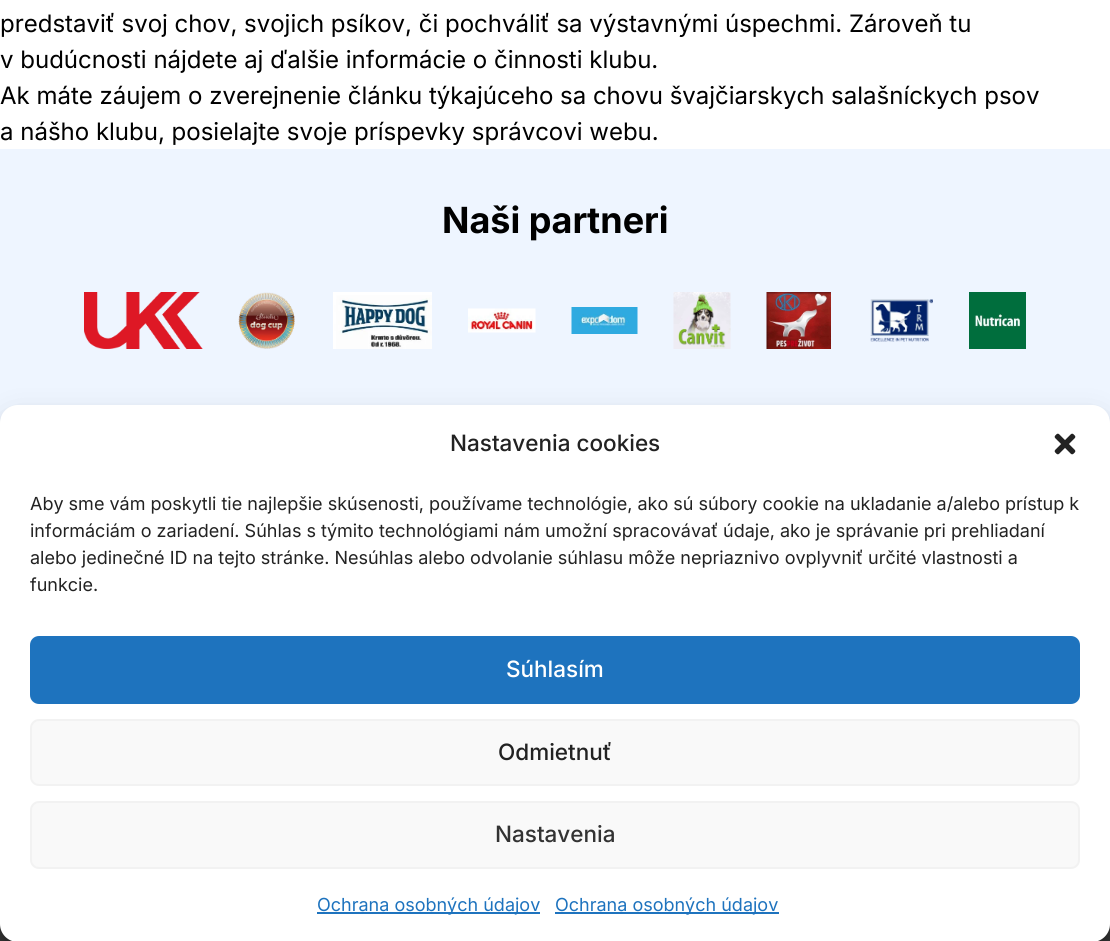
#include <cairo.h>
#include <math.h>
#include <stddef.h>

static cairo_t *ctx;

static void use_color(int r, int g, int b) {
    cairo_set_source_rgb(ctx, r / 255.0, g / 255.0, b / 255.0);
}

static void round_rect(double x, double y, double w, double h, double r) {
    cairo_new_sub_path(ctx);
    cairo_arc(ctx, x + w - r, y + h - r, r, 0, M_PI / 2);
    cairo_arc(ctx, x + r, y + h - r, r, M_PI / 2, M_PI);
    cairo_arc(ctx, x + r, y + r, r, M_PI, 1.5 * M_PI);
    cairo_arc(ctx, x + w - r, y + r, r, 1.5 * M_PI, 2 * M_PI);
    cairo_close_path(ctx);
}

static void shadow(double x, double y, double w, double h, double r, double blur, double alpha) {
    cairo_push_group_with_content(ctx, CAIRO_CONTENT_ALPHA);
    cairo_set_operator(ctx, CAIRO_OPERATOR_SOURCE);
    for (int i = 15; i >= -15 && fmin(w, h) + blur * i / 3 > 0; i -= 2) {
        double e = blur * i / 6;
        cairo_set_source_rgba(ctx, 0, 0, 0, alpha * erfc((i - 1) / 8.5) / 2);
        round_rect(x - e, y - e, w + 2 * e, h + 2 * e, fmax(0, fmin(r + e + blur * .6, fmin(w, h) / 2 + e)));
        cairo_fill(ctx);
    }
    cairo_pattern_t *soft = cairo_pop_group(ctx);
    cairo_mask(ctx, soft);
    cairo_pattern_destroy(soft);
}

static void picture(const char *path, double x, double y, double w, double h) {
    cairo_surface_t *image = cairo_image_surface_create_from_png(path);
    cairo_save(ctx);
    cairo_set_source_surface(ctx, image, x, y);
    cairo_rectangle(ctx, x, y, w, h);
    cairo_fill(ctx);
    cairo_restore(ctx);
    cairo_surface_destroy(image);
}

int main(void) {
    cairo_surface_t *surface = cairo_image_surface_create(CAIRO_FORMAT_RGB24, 1110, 941);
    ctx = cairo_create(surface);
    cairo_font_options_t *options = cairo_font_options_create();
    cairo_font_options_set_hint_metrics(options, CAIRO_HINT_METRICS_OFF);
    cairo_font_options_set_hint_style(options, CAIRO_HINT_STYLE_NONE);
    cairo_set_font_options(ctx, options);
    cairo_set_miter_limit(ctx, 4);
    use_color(255, 255, 255);
    cairo_paint(ctx);
    cairo_select_font_face(ctx, "Inter", CAIRO_FONT_SLANT_NORMAL, CAIRO_FONT_WEIGHT_NORMAL);
    cairo_set_font_size(ctx, 24);
    use_color(0, 0, 0);
    cairo_move_to(ctx, 0, 32);
    cairo_show_text(ctx, "predstaviť svoj chov, svojich psíkov, či pochváliť sa výstavnými úspechmi. Zároveň tu");
    cairo_move_to(ctx, 0, 68);
    cairo_show_text(ctx, "v budúcnosti nájdete aj ďalšie informácie o činnosti klubu.");
    cairo_move_to(ctx, 0, 104);
    cairo_show_text(ctx, "Ak máte záujem o zverejnenie článku týkajúceho sa chovu švajčiarskych salašníckych psov");
    cairo_move_to(ctx, 0, 140);
    cairo_show_text(ctx, "a nášho klubu, posielajte svoje príspevky správcovi webu.");
    use_color(238, 245, 255);
    cairo_rectangle(ctx, 0, 149, 1110, 274);
    cairo_fill(ctx);
    cairo_select_font_face(ctx, "Inter", CAIRO_FONT_SLANT_NORMAL, CAIRO_FONT_WEIGHT_BOLD);
    cairo_set_font_size(ctx, 36);
    use_color(0, 0, 0);
    cairo_move_to(ctx, 442, 233);
    cairo_show_text(ctx, "Naši partneri");
    picture("img1.png", 84, 292, 119, 57);
    picture("img2.png", 238, 292, 57, 57);
    picture("img3.png", 333, 292, 99, 57);
    picture("img4.png", 468, 308, 68, 25);
    picture("img5.png", 571, 307, 67, 27);
    picture("img6.png", 673, 292, 58, 57);
    picture("img7.png", 766, 292, 65, 57);
    picture("img8.png", 870, 299, 63, 43);
    picture("img9.png", 969, 292, 57, 57);
    use_color(56, 56, 56);
    cairo_rectangle(ctx, 0, 924, 1110, 17);
    cairo_fill(ctx);
    use_color(0, 0, 0);
    shadow(0, 414, 1110, 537, 18, 4.5, 0.23);
    shadow(0, 420, 1110, 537, 18, 15, 0.19);
    use_color(255, 255, 255);
    round_rect(0, 405, 1110, 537, 18);
    cairo_fill(ctx);
    cairo_select_font_face(ctx, "Inter Medium", CAIRO_FONT_SLANT_NORMAL, CAIRO_FONT_WEIGHT_NORMAL);
    cairo_set_font_size(ctx, 22.5);
    use_color(34, 34, 34);
    cairo_move_to(ctx, 450, 451);
    cairo_show_text(ctx, "Nastavenia cookies");
    picture("img10.png", 1054, 433, 22, 22);
    cairo_select_font_face(ctx, "Inter", CAIRO_FONT_SLANT_NORMAL, CAIRO_FONT_WEIGHT_NORMAL);
    cairo_set_font_size(ctx, 18);
    cairo_move_to(ctx, 30, 510);
    cairo_show_text(ctx, "Aby sme vám poskytli tie najlepšie skúsenosti, používame technológie, ako sú súbory cookie na ukladanie a/alebo prístup k");
    cairo_move_to(ctx, 30, 537);
    cairo_show_text(ctx, "informáciám o zariadení. Súhlas s týmito technológiami nám umožní spracovávať údaje, ako je správanie pri prehliadaní");
    cairo_move_to(ctx, 30, 564);
    cairo_show_text(ctx, "alebo jedinečné ID na tejto stránke. Nesúhlas alebo odvolanie súhlasu môže nepriaznivo ovplyvniť určité vlastnosti a");
    cairo_move_to(ctx, 30, 591);
    cairo_show_text(ctx, "funkcie.");
    use_color(30, 115, 190);
    round_rect(31, 637, 1048, 66, 8);
    cairo_fill_preserve(ctx);
    cairo_stroke(ctx);
    cairo_select_font_face(ctx, "Inter Medium", CAIRO_FONT_SLANT_NORMAL, CAIRO_FONT_WEIGHT_NORMAL);
    cairo_set_font_size(ctx, 22.5);
    use_color(255, 255, 255);
    cairo_move_to(ctx, 506, 677);
    cairo_show_text(ctx, "Súhlasím");
    use_color(249, 249, 249);
    round_rect(31, 720, 1048, 65, 8);
    cairo_fill_preserve(ctx);
    use_color(242, 242, 242);
    cairo_stroke(ctx);
    use_color(34, 34, 34);
    cairo_move_to(ctx, 498, 760);
    cairo_show_text(ctx, "Odmietnuť");
    use_color(249, 249, 249);
    round_rect(31, 802, 1048, 66, 8);
    cairo_fill_preserve(ctx);
    use_color(242, 242, 242);
    cairo_stroke(ctx);
    use_color(51, 51, 51);
    cairo_move_to(ctx, 495, 842);
    cairo_show_text(ctx, "Nastavenia");
    use_color(30, 115, 190);
    cairo_rectangle(ctx, 317, 912, 223, 2);
    cairo_fill(ctx);
    cairo_select_font_face(ctx, "Inter", CAIRO_FONT_SLANT_NORMAL, CAIRO_FONT_WEIGHT_NORMAL);
    cairo_set_font_size(ctx, 18);
    cairo_move_to(ctx, 317, 911);
    cairo_show_text(ctx, "Ochrana osobných údajov");
    cairo_rectangle(ctx, 555, 912, 224, 2);
    cairo_fill(ctx);
    cairo_move_to(ctx, 555, 911);
    cairo_show_text(ctx, "Ochrana osobných údajov");
    cairo_surface_write_to_png(surface, "result.png");
    cairo_font_options_destroy(options);
    cairo_destroy(ctx);
    cairo_surface_destroy(surface);
    return 0;
}
